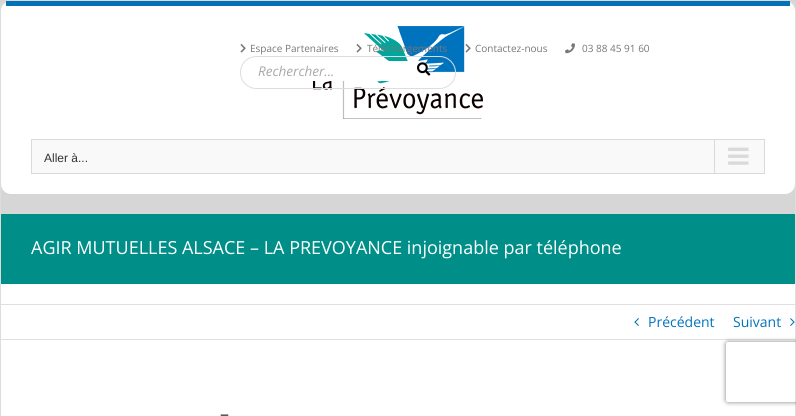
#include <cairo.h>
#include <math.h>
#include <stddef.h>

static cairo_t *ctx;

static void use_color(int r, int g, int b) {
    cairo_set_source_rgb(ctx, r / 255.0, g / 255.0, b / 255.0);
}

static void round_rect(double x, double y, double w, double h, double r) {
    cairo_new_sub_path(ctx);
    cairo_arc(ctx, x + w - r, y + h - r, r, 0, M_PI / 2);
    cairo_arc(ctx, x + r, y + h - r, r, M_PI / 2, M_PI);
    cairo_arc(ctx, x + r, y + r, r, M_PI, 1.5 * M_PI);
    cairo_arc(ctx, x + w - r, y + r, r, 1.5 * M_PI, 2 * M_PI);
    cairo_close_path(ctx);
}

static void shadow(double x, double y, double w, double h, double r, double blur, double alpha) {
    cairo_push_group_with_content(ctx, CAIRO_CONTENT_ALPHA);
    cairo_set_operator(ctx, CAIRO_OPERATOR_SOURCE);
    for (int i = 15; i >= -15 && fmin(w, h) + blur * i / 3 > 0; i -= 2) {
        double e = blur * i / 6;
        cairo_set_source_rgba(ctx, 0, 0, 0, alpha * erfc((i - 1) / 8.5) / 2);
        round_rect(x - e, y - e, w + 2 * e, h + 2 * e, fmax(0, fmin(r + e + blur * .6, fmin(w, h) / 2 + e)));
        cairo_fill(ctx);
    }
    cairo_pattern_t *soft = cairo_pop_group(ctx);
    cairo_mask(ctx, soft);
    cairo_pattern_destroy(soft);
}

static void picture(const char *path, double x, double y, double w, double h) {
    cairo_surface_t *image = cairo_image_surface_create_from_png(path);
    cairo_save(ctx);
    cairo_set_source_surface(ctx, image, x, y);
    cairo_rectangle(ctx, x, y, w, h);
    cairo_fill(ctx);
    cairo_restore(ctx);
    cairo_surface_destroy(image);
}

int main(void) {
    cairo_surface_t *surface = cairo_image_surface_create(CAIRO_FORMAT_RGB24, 796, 416);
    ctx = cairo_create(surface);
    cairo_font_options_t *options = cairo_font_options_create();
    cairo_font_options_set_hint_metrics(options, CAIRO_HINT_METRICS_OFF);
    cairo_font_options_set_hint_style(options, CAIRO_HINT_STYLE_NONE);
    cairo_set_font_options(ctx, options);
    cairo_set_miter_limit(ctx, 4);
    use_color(215, 214, 214);
    cairo_paint(ctx);
    round_rect(0.5, 0.5, 795, 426, 9.5);
    use_color(221, 221, 221);
    cairo_set_line_width(ctx, 1);
    cairo_stroke(ctx);
    use_color(255, 255, 255);
    round_rect(1, 1, 794, 193, 10);
    cairo_fill(ctx);
    use_color(3, 112, 184);
    cairo_rectangle(ctx, 6, 1, 784, 5);
    cairo_fill(ctx);
    picture("img1.png", 313, 26, 170, 93);
    picture("img2.png", 240, 44, 6, 9);
    cairo_select_font_face(ctx, "Open Sans", CAIRO_FONT_SLANT_NORMAL, CAIRO_FONT_WEIGHT_NORMAL);
    cairo_set_font_size(ctx, 10);
    use_color(119, 119, 119);
    cairo_move_to(ctx, 250, 52);
    cairo_show_text(ctx, "Espace Partenaires");
    picture("img2.png", 356, 44, 6, 9);
    cairo_move_to(ctx, 367, 52);
    cairo_show_text(ctx, "Téléchargements");
    picture("img2.png", 465, 44, 6, 9);
    cairo_move_to(ctx, 475, 52);
    cairo_show_text(ctx, "Contactez-nous");
    picture("img3.png", 565, 43, 10, 11);
    cairo_move_to(ctx, 582, 52);
    cairo_show_text(ctx, "03 88 45 91 60");
    round_rect(240.5, 56.5, 215, 32, 16);
    use_color(221, 221, 221);
    cairo_stroke(ctx);
    use_color(255, 255, 255);
    cairo_rectangle(ctx, 313, 61, 95, 20);
    cairo_fill(ctx);
    cairo_select_font_face(ctx, "Open Sans", CAIRO_FONT_SLANT_ITALIC, CAIRO_FONT_WEIGHT_NORMAL);
    cairo_set_font_size(ctx, 13.5);
    use_color(170, 169, 169);
    cairo_move_to(ctx, 258, 76);
    cairo_show_text(ctx, "Rechercher...");
    picture("img4.png", 417, 62, 14, 14);
    use_color(249, 249, 249);
    cairo_rectangle(ctx, 31.5, 139.5, 733, 34);
    cairo_fill_preserve(ctx);
    use_color(218, 218, 218);
    cairo_stroke(ctx);
    cairo_select_font_face(ctx, "Liberation Sans", CAIRO_FONT_SLANT_NORMAL, CAIRO_FONT_WEIGHT_NORMAL);
    cairo_set_font_size(ctx, 12);
    use_color(51, 51, 51);
    cairo_move_to(ctx, 44, 162);
    cairo_show_text(ctx, "Aller à...");
    use_color(218, 218, 218);
    cairo_rectangle(ctx, 714, 140, 1, 33);
    cairo_fill(ctx);
    picture("img5.png", 728, 147, 21, 18);
    use_color(0, 143, 136);
    cairo_rectangle(ctx, 1, 214, 794, 70);
    cairo_fill(ctx);
    cairo_select_font_face(ctx, "Open Sans", CAIRO_FONT_SLANT_NORMAL, CAIRO_FONT_WEIGHT_NORMAL);
    cairo_set_font_size(ctx, 18);
    use_color(255, 255, 255);
    cairo_move_to(ctx, 31, 254);
    cairo_show_text(ctx, "AGIR MUTUELLES ALSACE – LA PREVOYANCE injoignable par téléphone");
    cairo_rectangle(ctx, 1, 284, 794, 132);
    cairo_fill(ctx);
    use_color(224, 222, 222);
    cairo_rectangle(ctx, 1, 304, 794, 1);
    cairo_fill(ctx);
    cairo_rectangle(ctx, 1, 339, 794, 1);
    cairo_fill(ctx);
    picture("img6.png", 634, 318, 5, 8);
    cairo_set_font_size(ctx, 14);
    use_color(0, 115, 190);
    cairo_move_to(ctx, 648, 327);
    cairo_show_text(ctx, "Précédent");
    cairo_move_to(ctx, 733, 327);
    cairo_show_text(ctx, "Suivant");
    picture("img7.png", 790, 318, 5, 8);
    cairo_set_font_size(ctx, 18);
    use_color(51, 51, 51);
    cairo_move_to(ctx, 220, 420);
    cairo_show_text(ctx, "–");
    cairo_save(ctx);
    cairo_set_fill_rule(ctx, CAIRO_FILL_RULE_EVEN_ODD);
    cairo_new_path(ctx);
    cairo_move_to(ctx, 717, 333);
    cairo_line_to(ctx, 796, 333);
    cairo_line_to(ctx, 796, 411);
    cairo_line_to(ctx, 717, 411);
    cairo_close_path(ctx);
    cairo_move_to(ctx, 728, 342);
    cairo_line_to(ctx, 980, 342);
    cairo_curve_to(ctx, 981, 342, 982, 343, 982, 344);
    cairo_line_to(ctx, 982, 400);
    cairo_curve_to(ctx, 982, 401, 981, 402, 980, 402);
    cairo_line_to(ctx, 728, 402);
    cairo_curve_to(ctx, 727, 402, 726, 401, 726, 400);
    cairo_line_to(ctx, 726, 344);
    cairo_curve_to(ctx, 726, 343, 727, 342, 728, 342);
    cairo_close_path(ctx);
    cairo_clip(ctx);
    use_color(128, 128, 128);
    shadow(726, 342, 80, 60, 2, 2.5, 1);
    cairo_restore(ctx);
    cairo_surface_write_to_png(surface, "result.png");
    cairo_font_options_destroy(options);
    cairo_destroy(ctx);
    cairo_surface_destroy(surface);
    return 0;
}
